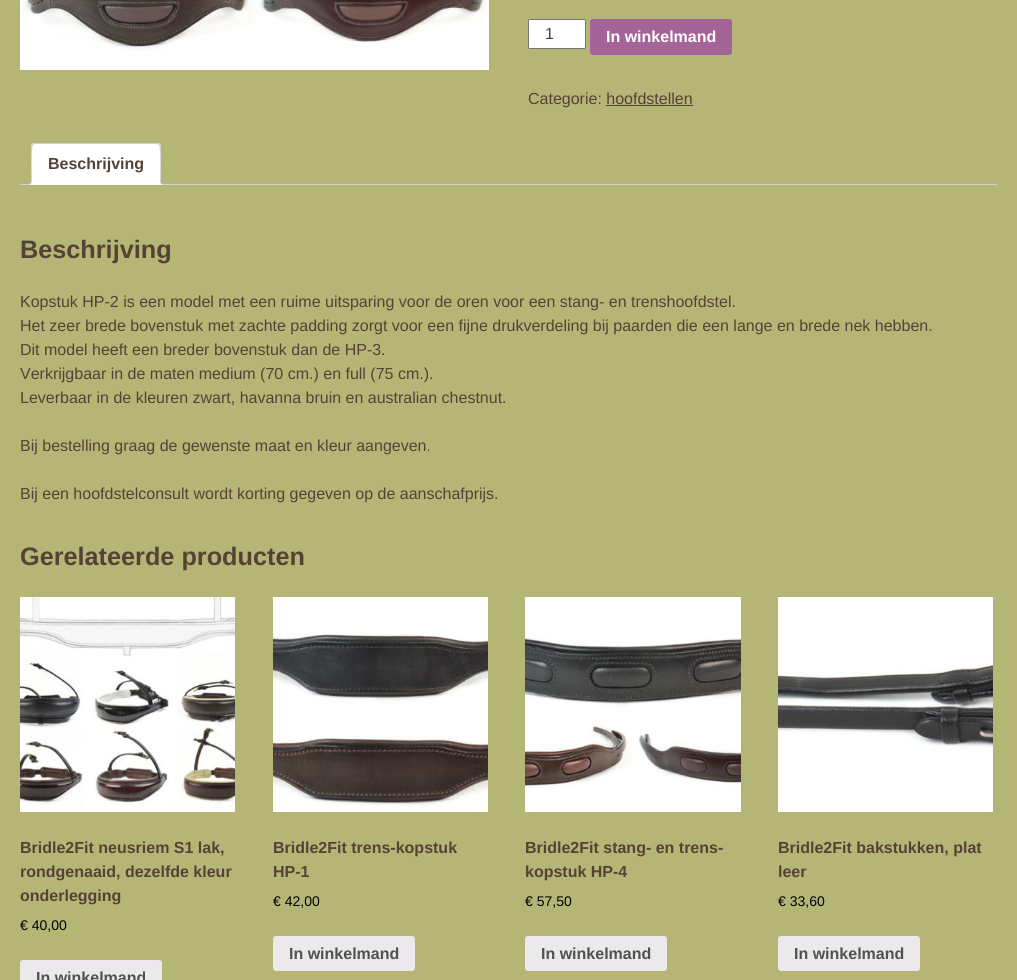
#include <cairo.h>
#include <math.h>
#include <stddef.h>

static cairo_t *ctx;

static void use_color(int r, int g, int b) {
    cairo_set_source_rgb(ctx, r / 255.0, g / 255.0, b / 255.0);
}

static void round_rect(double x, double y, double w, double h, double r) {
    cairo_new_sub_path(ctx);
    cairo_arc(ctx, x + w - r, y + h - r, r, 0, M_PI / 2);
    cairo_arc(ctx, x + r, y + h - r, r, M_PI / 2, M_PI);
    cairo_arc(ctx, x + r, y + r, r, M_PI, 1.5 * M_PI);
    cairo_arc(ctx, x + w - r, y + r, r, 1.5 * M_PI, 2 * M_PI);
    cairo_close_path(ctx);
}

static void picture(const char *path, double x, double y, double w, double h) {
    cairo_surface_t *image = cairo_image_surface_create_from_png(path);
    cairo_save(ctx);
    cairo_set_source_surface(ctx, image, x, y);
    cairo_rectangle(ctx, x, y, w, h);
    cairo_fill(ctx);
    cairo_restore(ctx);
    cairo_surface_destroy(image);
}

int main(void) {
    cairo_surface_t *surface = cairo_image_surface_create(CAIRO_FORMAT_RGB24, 1017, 980);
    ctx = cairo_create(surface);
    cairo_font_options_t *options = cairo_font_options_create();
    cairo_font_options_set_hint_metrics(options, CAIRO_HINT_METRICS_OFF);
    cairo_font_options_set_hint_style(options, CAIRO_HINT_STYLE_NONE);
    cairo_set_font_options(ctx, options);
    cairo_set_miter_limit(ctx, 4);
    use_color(181, 181, 117);
    cairo_paint(ctx);
    picture("img1.png", 20, 0, 469, 70);
    use_color(255, 255, 255);
    round_rect(528.5, 19.5, 57, 29, 1.5);
    cairo_fill_preserve(ctx);
    use_color(118, 118, 118);
    cairo_set_line_width(ctx, 1);
    cairo_stroke(ctx);
    cairo_select_font_face(ctx, "Liberation Sans", CAIRO_FONT_SLANT_NORMAL, CAIRO_FONT_WEIGHT_NORMAL);
    cairo_set_font_size(ctx, 16);
    use_color(64, 64, 64);
    cairo_move_to(ctx, 545, 39);
    cairo_show_text(ctx, "1");
    use_color(164, 100, 151);
    round_rect(590, 19, 142, 36, 3);
    cairo_fill(ctx);
    cairo_select_font_face(ctx, "Liberation Sans", CAIRO_FONT_SLANT_NORMAL, CAIRO_FONT_WEIGHT_BOLD);
    use_color(255, 255, 255);
    cairo_move_to(ctx, 606, 42);
    cairo_show_text(ctx, "In winkelmand");
    cairo_select_font_face(ctx, "Liberation Sans", CAIRO_FONT_SLANT_NORMAL, CAIRO_FONT_WEIGHT_NORMAL);
    use_color(85, 66, 54);
    cairo_move_to(ctx, 528, 104);
    cairo_show_text(ctx, "Categorie: hoofdstellen");
    cairo_rectangle(ctx, 606, 105, 87, 1);
    cairo_fill(ctx);
    use_color(211, 206, 210);
    cairo_rectangle(ctx, 20, 184, 977, 1);
    cairo_fill(ctx);
    use_color(255, 255, 255);
    cairo_new_path(ctx);
    cairo_move_to(ctx, 35, 143);
    cairo_line_to(ctx, 157, 143);
    cairo_curve_to(ctx, 159, 143, 161, 145, 161, 147);
    cairo_line_to(ctx, 161, 185);
    cairo_line_to(ctx, 31, 185);
    cairo_line_to(ctx, 31, 147);
    cairo_curve_to(ctx, 31, 145, 33, 143, 35, 143);
    cairo_close_path(ctx);
    cairo_fill(ctx);
    use_color(211, 206, 210);
    cairo_new_path(ctx);
    cairo_move_to(ctx, 35, 143);
    cairo_line_to(ctx, 32, 144);
    cairo_line_to(ctx, 33, 145);
    cairo_line_to(ctx, 35, 144);
    cairo_line_to(ctx, 157, 144);
    cairo_line_to(ctx, 159, 145);
    cairo_line_to(ctx, 160, 144);
    cairo_line_to(ctx, 157, 143);
    cairo_close_path(ctx);
    cairo_fill(ctx);
    cairo_new_path(ctx);
    cairo_move_to(ctx, 161, 185);
    cairo_line_to(ctx, 161, 147);
    cairo_curve_to(ctx, 161, 146, 160, 145, 160, 144);
    cairo_line_to(ctx, 159, 145);
    cairo_curve_to(ctx, 161, 147, 160, 179, 160, 184);
    cairo_close_path(ctx);
    cairo_fill(ctx);
    use_color(255, 255, 255);
    cairo_new_path(ctx);
    cairo_move_to(ctx, 161, 185);
    cairo_line_to(ctx, 160, 184);
    cairo_line_to(ctx, 32, 184);
    cairo_line_to(ctx, 31, 185);
    cairo_close_path(ctx);
    cairo_fill(ctx);
    use_color(211, 206, 210);
    cairo_new_path(ctx);
    cairo_move_to(ctx, 31, 185);
    cairo_line_to(ctx, 32, 184);
    cairo_curve_to(ctx, 32, 179, 31, 147, 33, 145);
    cairo_line_to(ctx, 32, 144);
    cairo_line_to(ctx, 31, 147);
    cairo_close_path(ctx);
    cairo_fill(ctx);
    cairo_select_font_face(ctx, "Liberation Sans", CAIRO_FONT_SLANT_NORMAL, CAIRO_FONT_WEIGHT_BOLD);
    use_color(85, 66, 54);
    cairo_move_to(ctx, 48, 169);
    cairo_show_text(ctx, "Beschrijving");
    cairo_save(ctx);
    cairo_rectangle(ctx, 20, 143, 977, 42);
    cairo_clip(ctx);
    use_color(255, 255, 255);
    cairo_new_path(ctx);
    cairo_move_to(ctx, 29, 185);
    cairo_line_to(ctx, 29, 187);
    cairo_curve_to(ctx, 32.5, 187, 34, 185.5, 34, 182);
    cairo_line_to(ctx, 32, 182);
    cairo_curve_to(ctx, 31.5, 183.5, 30.5, 184.5, 29, 185);
    cairo_close_path(ctx);
    cairo_fill(ctx);
    cairo_restore(ctx);
    use_color(211, 206, 210);
    cairo_set_fill_rule(ctx, CAIRO_FILL_RULE_EVEN_ODD);
    cairo_new_path(ctx);
    cairo_move_to(ctx, 27, 180);
    cairo_line_to(ctx, 32, 180);
    cairo_curve_to(ctx, 32, 183.5, 30.5, 185, 27, 185);
    cairo_close_path(ctx);
    cairo_move_to(ctx, 27, 180);
    cairo_line_to(ctx, 31, 180);
    cairo_curve_to(ctx, 31, 183, 30, 184, 27, 184);
    cairo_close_path(ctx);
    cairo_fill(ctx);
    cairo_save(ctx);
    cairo_set_fill_rule(ctx, CAIRO_FILL_RULE_WINDING);
    cairo_rectangle(ctx, 20, 143, 977, 42);
    cairo_clip(ctx);
    use_color(255, 255, 255);
    cairo_new_path(ctx);
    cairo_move_to(ctx, 158, 182);
    cairo_curve_to(ctx, 158, 185.5, 159.5, 187, 163, 187);
    cairo_line_to(ctx, 163, 185);
    cairo_curve_to(ctx, 161.5, 184.5, 160.5, 183.5, 160, 182);
    cairo_close_path(ctx);
    cairo_fill(ctx);
    cairo_restore(ctx);
    cairo_new_path(ctx);
    cairo_move_to(ctx, 160, 180);
    cairo_line_to(ctx, 165, 180);
    cairo_line_to(ctx, 165, 185);
    cairo_curve_to(ctx, 162.5, 185, 160, 184, 160, 181);
    cairo_close_path(ctx);
    cairo_move_to(ctx, 161, 180);
    cairo_line_to(ctx, 165, 180);
    cairo_line_to(ctx, 165, 184);
    cairo_curve_to(ctx, 163, 184, 161, 183.5, 161, 181);
    cairo_close_path(ctx);
    cairo_fill(ctx);
    cairo_set_font_size(ctx, 25.25);
    use_color(85, 66, 54);
    cairo_move_to(ctx, 20, 258);
    cairo_show_text(ctx, "Beschrijving");
    cairo_select_font_face(ctx, "Liberation Sans", CAIRO_FONT_SLANT_NORMAL, CAIRO_FONT_WEIGHT_NORMAL);
    cairo_set_font_size(ctx, 16);
    cairo_move_to(ctx, 20, 307);
    cairo_show_text(ctx, "Kopstuk HP-2 is een model met een ruime uitsparing voor de oren voor een stang- en trenshoofdstel.");
    cairo_move_to(ctx, 20, 331);
    cairo_show_text(ctx, "Het zeer brede bovenstuk met zachte padding zorgt voor een fijne drukverdeling bij paarden die een lange en brede nek hebben.");
    cairo_move_to(ctx, 20, 355);
    cairo_show_text(ctx, "Dit model heeft een breder bovenstuk dan de HP-3.");
    cairo_move_to(ctx, 20, 379);
    cairo_show_text(ctx, "Verkrijgbaar in de maten medium (70 cm.) en full (75 cm.).");
    cairo_move_to(ctx, 20, 403);
    cairo_show_text(ctx, "Leverbaar in de kleuren zwart, havanna bruin en australian chestnut.");
    cairo_move_to(ctx, 20, 451);
    cairo_show_text(ctx, "Bij bestelling graag de gewenste maat en kleur aangeven.");
    cairo_move_to(ctx, 20, 499);
    cairo_show_text(ctx, "Bij een hoofdstelconsult wordt korting gegeven op de aanschafprijs.");
    cairo_select_font_face(ctx, "Liberation Sans", CAIRO_FONT_SLANT_NORMAL, CAIRO_FONT_WEIGHT_BOLD);
    cairo_set_font_size(ctx, 25.25);
    cairo_move_to(ctx, 20, 565);
    cairo_show_text(ctx, "Gerelateerde producten");
    picture("img2.png", 20, 597, 215, 215);
    cairo_set_font_size(ctx, 16);
    cairo_move_to(ctx, 20, 853);
    cairo_show_text(ctx, "Bridle2Fit neusriem S1 lak,");
    cairo_move_to(ctx, 20, 877);
    cairo_show_text(ctx, "rondgenaaid, dezelfde kleur");
    cairo_move_to(ctx, 20, 901);
    cairo_show_text(ctx, "onderlegging");
    cairo_select_font_face(ctx, "Liberation Sans", CAIRO_FONT_SLANT_NORMAL, CAIRO_FONT_WEIGHT_NORMAL);
    cairo_set_font_size(ctx, 14);
    use_color(0, 0, 0);
    cairo_move_to(ctx, 20, 930);
    cairo_show_text(ctx, "€ 40,00");
    use_color(235, 233, 235);
    round_rect(20, 960, 142, 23, 3);
    cairo_fill(ctx);
    cairo_select_font_face(ctx, "Liberation Sans", CAIRO_FONT_SLANT_NORMAL, CAIRO_FONT_WEIGHT_BOLD);
    cairo_set_font_size(ctx, 16);
    use_color(81, 81, 81);
    cairo_move_to(ctx, 36, 983);
    cairo_show_text(ctx, "In winkelmand");
    picture("img3.png", 273, 597, 215, 215);
    use_color(85, 66, 54);
    cairo_move_to(ctx, 273, 853);
    cairo_show_text(ctx, "Bridle2Fit trens-kopstuk");
    cairo_move_to(ctx, 273, 877);
    cairo_show_text(ctx, "HP-1");
    cairo_select_font_face(ctx, "Liberation Sans", CAIRO_FONT_SLANT_NORMAL, CAIRO_FONT_WEIGHT_NORMAL);
    cairo_set_font_size(ctx, 14);
    use_color(0, 0, 0);
    cairo_move_to(ctx, 273, 906);
    cairo_show_text(ctx, "€ 42,00");
    use_color(235, 233, 235);
    round_rect(273, 936, 142, 35, 3);
    cairo_fill(ctx);
    cairo_select_font_face(ctx, "Liberation Sans", CAIRO_FONT_SLANT_NORMAL, CAIRO_FONT_WEIGHT_BOLD);
    cairo_set_font_size(ctx, 16);
    use_color(81, 81, 81);
    cairo_move_to(ctx, 289, 959);
    cairo_show_text(ctx, "In winkelmand");
    picture("img4.png", 525, 597, 216, 215);
    use_color(85, 66, 54);
    cairo_move_to(ctx, 525, 853);
    cairo_show_text(ctx, "Bridle2Fit stang- en trens-");
    cairo_move_to(ctx, 525, 877);
    cairo_show_text(ctx, "kopstuk HP-4");
    cairo_select_font_face(ctx, "Liberation Sans", CAIRO_FONT_SLANT_NORMAL, CAIRO_FONT_WEIGHT_NORMAL);
    cairo_set_font_size(ctx, 14);
    use_color(0, 0, 0);
    cairo_move_to(ctx, 525, 906);
    cairo_show_text(ctx, "€ 57,50");
    use_color(235, 233, 235);
    round_rect(525, 936, 142, 35, 3);
    cairo_fill(ctx);
    cairo_select_font_face(ctx, "Liberation Sans", CAIRO_FONT_SLANT_NORMAL, CAIRO_FONT_WEIGHT_BOLD);
    cairo_set_font_size(ctx, 16);
    use_color(81, 81, 81);
    cairo_move_to(ctx, 541, 959);
    cairo_show_text(ctx, "In winkelmand");
    picture("img5.png", 778, 597, 215, 215);
    use_color(85, 66, 54);
    cairo_move_to(ctx, 778, 853);
    cairo_show_text(ctx, "Bridle2Fit bakstukken, plat");
    cairo_move_to(ctx, 778, 877);
    cairo_show_text(ctx, "leer");
    cairo_select_font_face(ctx, "Liberation Sans", CAIRO_FONT_SLANT_NORMAL, CAIRO_FONT_WEIGHT_NORMAL);
    cairo_set_font_size(ctx, 14);
    use_color(0, 0, 0);
    cairo_move_to(ctx, 778, 906);
    cairo_show_text(ctx, "€ 33,60");
    use_color(235, 233, 235);
    round_rect(778, 936, 142, 35, 3);
    cairo_fill(ctx);
    cairo_select_font_face(ctx, "Liberation Sans", CAIRO_FONT_SLANT_NORMAL, CAIRO_FONT_WEIGHT_BOLD);
    cairo_set_font_size(ctx, 16);
    use_color(81, 81, 81);
    cairo_move_to(ctx, 794, 959);
    cairo_show_text(ctx, "In winkelmand");
    cairo_surface_write_to_png(surface, "result.png");
    cairo_font_options_destroy(options);
    cairo_destroy(ctx);
    cairo_surface_destroy(surface);
    return 0;
}
